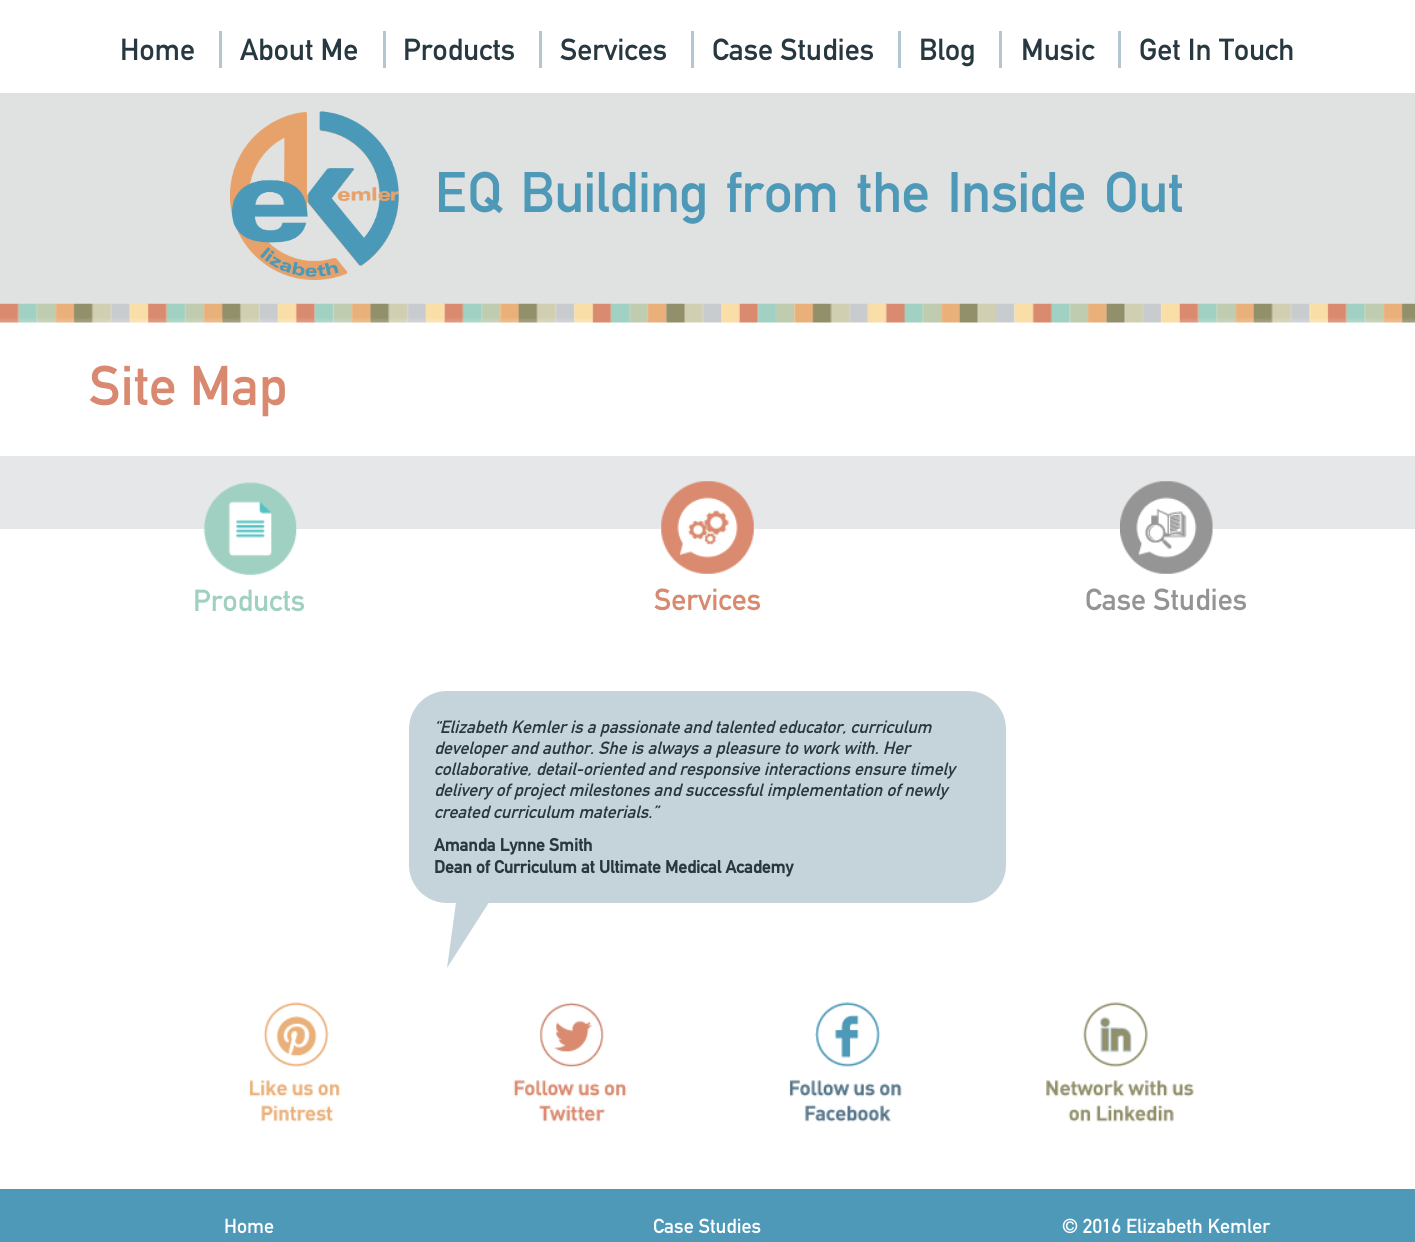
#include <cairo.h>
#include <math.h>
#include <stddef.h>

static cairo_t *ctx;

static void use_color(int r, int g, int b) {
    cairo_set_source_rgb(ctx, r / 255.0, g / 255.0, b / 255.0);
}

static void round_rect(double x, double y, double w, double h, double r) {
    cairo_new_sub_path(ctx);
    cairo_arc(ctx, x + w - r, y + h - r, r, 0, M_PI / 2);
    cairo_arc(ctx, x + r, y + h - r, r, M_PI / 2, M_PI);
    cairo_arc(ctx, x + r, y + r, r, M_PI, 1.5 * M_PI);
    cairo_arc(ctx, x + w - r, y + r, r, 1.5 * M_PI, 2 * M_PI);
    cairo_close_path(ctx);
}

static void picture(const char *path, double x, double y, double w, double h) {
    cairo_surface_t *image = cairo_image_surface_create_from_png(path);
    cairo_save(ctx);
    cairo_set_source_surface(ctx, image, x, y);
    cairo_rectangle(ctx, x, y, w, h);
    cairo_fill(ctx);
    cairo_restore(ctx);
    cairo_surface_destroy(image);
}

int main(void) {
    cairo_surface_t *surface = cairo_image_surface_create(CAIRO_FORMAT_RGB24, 1415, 1242);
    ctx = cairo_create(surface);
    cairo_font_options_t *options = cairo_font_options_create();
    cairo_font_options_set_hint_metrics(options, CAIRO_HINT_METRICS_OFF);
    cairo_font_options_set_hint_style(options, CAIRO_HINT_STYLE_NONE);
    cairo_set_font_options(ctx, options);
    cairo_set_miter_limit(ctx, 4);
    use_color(255, 255, 255);
    cairo_paint(ctx);
    cairo_select_font_face(ctx, "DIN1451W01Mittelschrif", CAIRO_FONT_SLANT_NORMAL, CAIRO_FONT_WEIGHT_NORMAL);
    cairo_set_font_size(ctx, 30);
    use_color(39, 56, 64);
    cairo_move_to(ctx, 120, 60);
    cairo_show_text(ctx, "Home");
    use_color(179, 199, 211);
    cairo_rectangle(ctx, 219, 31, 3, 37);
    cairo_fill(ctx);
    use_color(39, 56, 64);
    cairo_move_to(ctx, 240, 60);
    cairo_show_text(ctx, "About Me");
    use_color(179, 199, 211);
    cairo_rectangle(ctx, 383, 31, 3, 37);
    cairo_fill(ctx);
    use_color(39, 56, 64);
    cairo_move_to(ctx, 403, 60);
    cairo_show_text(ctx, "Products");
    use_color(179, 199, 211);
    cairo_rectangle(ctx, 539, 31, 3, 37);
    cairo_fill(ctx);
    use_color(39, 56, 64);
    cairo_move_to(ctx, 560, 60);
    cairo_show_text(ctx, "Services");
    use_color(179, 199, 211);
    cairo_rectangle(ctx, 691, 31, 3, 37);
    cairo_fill(ctx);
    use_color(39, 56, 64);
    cairo_move_to(ctx, 712, 60);
    cairo_show_text(ctx, "Case Studies");
    use_color(179, 199, 211);
    cairo_rectangle(ctx, 898, 31, 3, 37);
    cairo_fill(ctx);
    use_color(39, 56, 64);
    cairo_move_to(ctx, 919, 60);
    cairo_show_text(ctx, "Blog");
    use_color(179, 199, 211);
    cairo_rectangle(ctx, 999, 31, 3, 37);
    cairo_fill(ctx);
    use_color(39, 56, 64);
    cairo_move_to(ctx, 1021, 60);
    cairo_show_text(ctx, "Music");
    use_color(179, 199, 211);
    cairo_rectangle(ctx, 1118, 31, 3, 37);
    cairo_fill(ctx);
    use_color(39, 56, 64);
    cairo_move_to(ctx, 1139, 60);
    cairo_show_text(ctx, "Get In Touch");
    use_color(224, 225, 225);
    cairo_rectangle(ctx, 0, 93, 1415, 211);
    cairo_fill(ctx);
    picture("img1.png", 0, 303, 1415, 20);
    picture("img2.png", 230, 111, 169, 169);
    cairo_select_font_face(ctx, "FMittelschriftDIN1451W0", CAIRO_FONT_SLANT_NORMAL, CAIRO_FONT_WEIGHT_NORMAL);
    cairo_set_font_size(ctx, 60);
    use_color(78, 152, 184);
    cairo_move_to(ctx, 435, 212);
    cairo_show_text(ctx, "EQ Building from the Inside Out");
    cairo_select_font_face(ctx, "DIN1451W01Mittelschrif", CAIRO_FONT_SLANT_NORMAL, CAIRO_FONT_WEIGHT_NORMAL);
    cairo_set_font_size(ctx, 55);
    use_color(216, 137, 111);
    cairo_move_to(ctx, 89, 405);
    cairo_show_text(ctx, "Site Map");
    use_color(230, 231, 232);
    cairo_rectangle(ctx, 0, 456, 1415, 73);
    cairo_fill(ctx);
    picture("img3.png", 203, 482, 94, 93);
    cairo_set_font_size(ctx, 30);
    use_color(160, 208, 193);
    cairo_move_to(ctx, 193, 611);
    cairo_show_text(ctx, "Products");
    picture("img4.png", 661, 481, 93, 93);
    use_color(216, 137, 111);
    cairo_move_to(ctx, 654, 610);
    cairo_show_text(ctx, "Services");
    picture("img5.png", 1120, 481, 93, 93);
    use_color(149, 148, 149);
    cairo_move_to(ctx, 1085, 610);
    cairo_show_text(ctx, "Case Studies");
    use_color(197, 212, 218);
    round_rect(409, 691, 597, 212, 38);
    cairo_fill(ctx);
    cairo_select_font_face(ctx, "DIN1451W01Mittelschrif", CAIRO_FONT_SLANT_ITALIC, CAIRO_FONT_WEIGHT_NORMAL);
    cairo_set_font_size(ctx, 17.5);
    use_color(39, 56, 64);
    cairo_move_to(ctx, 434, 733);
    cairo_show_text(ctx, "“Elizabeth Kemler is a passionate and talented educator, curriculum");
    cairo_move_to(ctx, 434, 754);
    cairo_show_text(ctx, "developer and author. She is always a pleasure to work with. Her");
    cairo_move_to(ctx, 434, 775);
    cairo_show_text(ctx, "collaborative, detail-oriented and responsive interactions ensure timely");
    cairo_move_to(ctx, 434, 796);
    cairo_show_text(ctx, "delivery of project milestones and successful implementation of newly");
    cairo_move_to(ctx, 434, 818);
    cairo_show_text(ctx, "created curriculum materials.”");
    cairo_select_font_face(ctx, "DIN1451W01Mittelschrif", CAIRO_FONT_SLANT_NORMAL, CAIRO_FONT_WEIGHT_BOLD);
    cairo_move_to(ctx, 434, 851);
    cairo_show_text(ctx, "Amanda Lynne Smith");
    cairo_move_to(ctx, 434, 873);
    cairo_show_text(ctx, "Dean of Curriculum at Ultimate Medical Academy");
    use_color(197, 212, 218);
    cairo_new_path(ctx);
    cairo_move_to(ctx, 458, 888);
    cairo_line_to(ctx, 495, 893);
    cairo_line_to(ctx, 447, 968);
    cairo_close_path(ctx);
    cairo_fill(ctx);
    picture("img6.png", 249, 1002, 92, 120);
    picture("img7.png", 513, 1002, 114, 120);
    picture("img8.png", 789, 1002, 113, 120);
    picture("img9.png", 1046, 1002, 148, 120);
    use_color(78, 152, 184);
    cairo_rectangle(ctx, 0, 1189, 1415, 53);
    cairo_fill(ctx);
    cairo_select_font_face(ctx, "DIN1451W01Mittelschrif", CAIRO_FONT_SLANT_NORMAL, CAIRO_FONT_WEIGHT_NORMAL);
    cairo_set_font_size(ctx, 20);
    use_color(255, 255, 255);
    cairo_move_to(ctx, 224, 1233);
    cairo_show_text(ctx, "Home");
    cairo_move_to(ctx, 653, 1233);
    cairo_show_text(ctx, "Case Studies");
    cairo_move_to(ctx, 1062, 1233);
    cairo_show_text(ctx, "© 2016 Elizabeth Kemler");
    cairo_surface_write_to_png(surface, "result.png");
    cairo_font_options_destroy(options);
    cairo_destroy(ctx);
    cairo_surface_destroy(surface);
    return 0;
}
